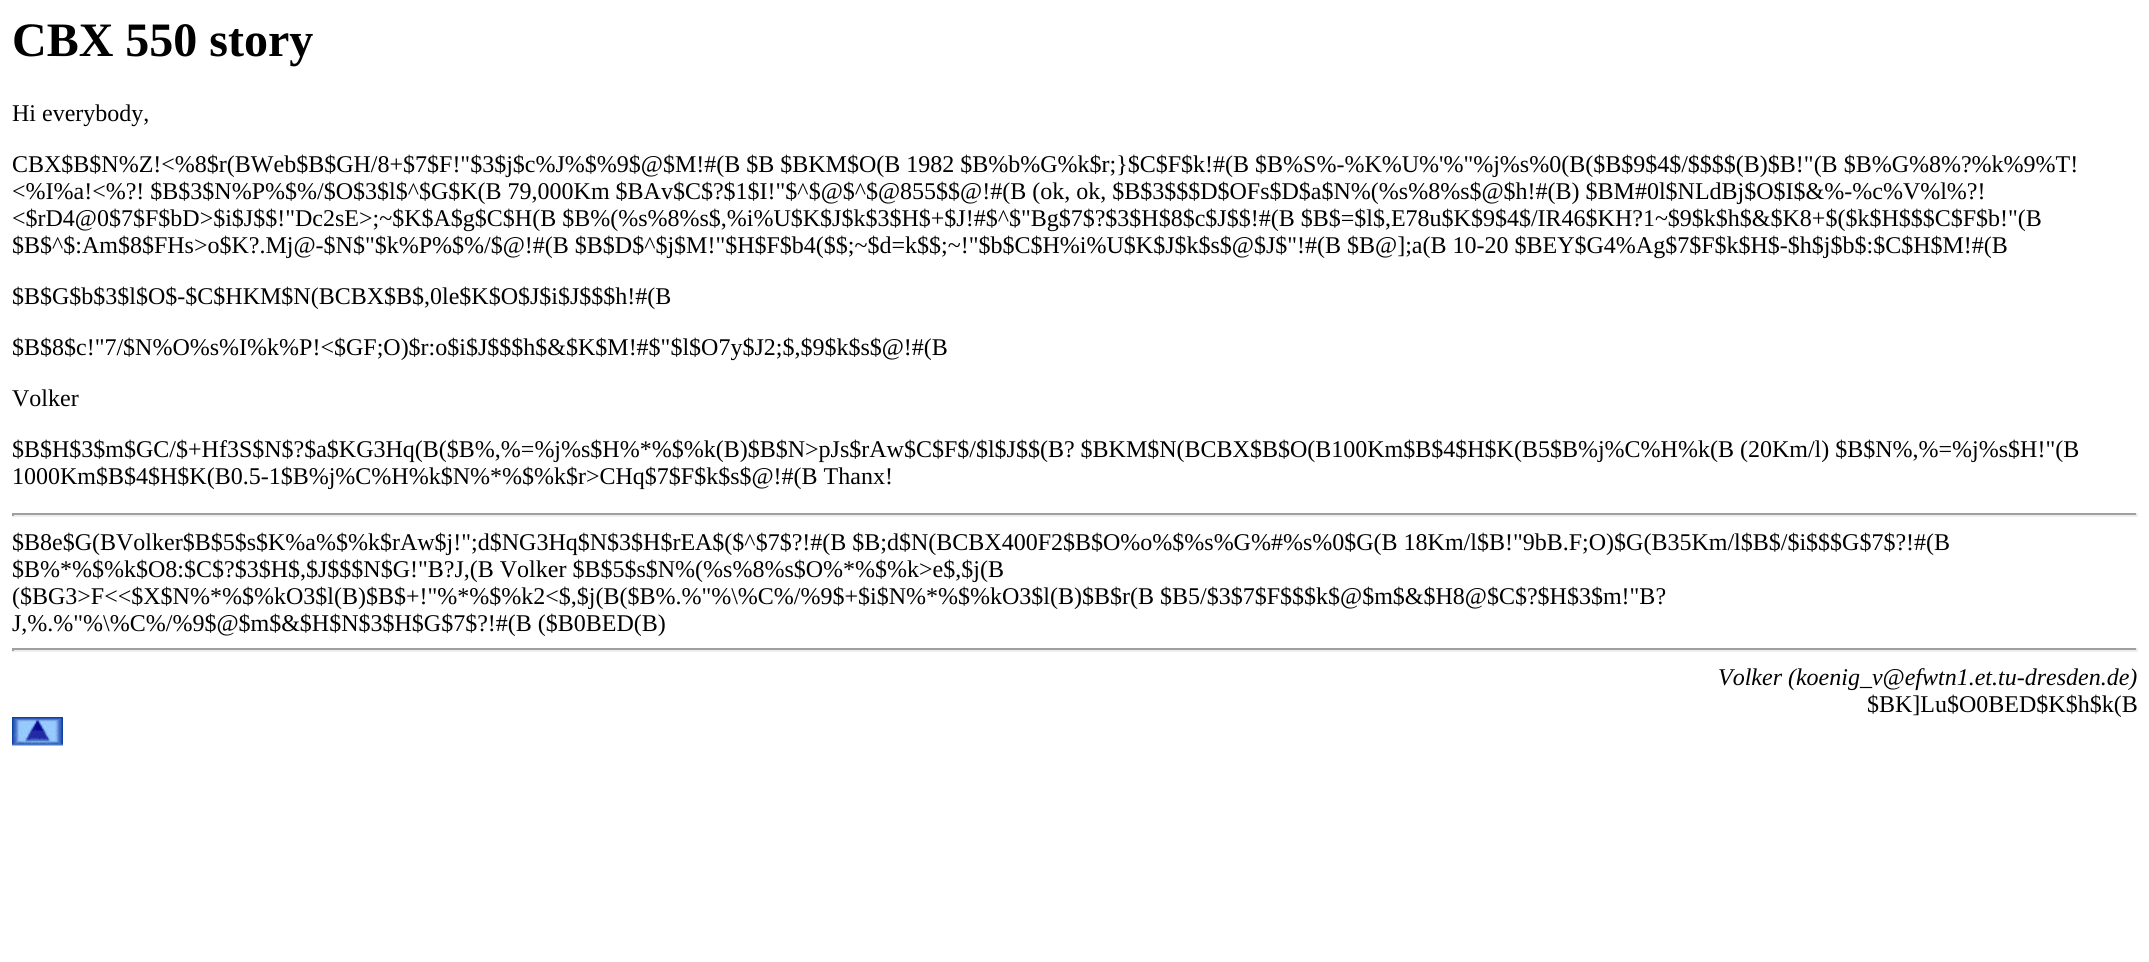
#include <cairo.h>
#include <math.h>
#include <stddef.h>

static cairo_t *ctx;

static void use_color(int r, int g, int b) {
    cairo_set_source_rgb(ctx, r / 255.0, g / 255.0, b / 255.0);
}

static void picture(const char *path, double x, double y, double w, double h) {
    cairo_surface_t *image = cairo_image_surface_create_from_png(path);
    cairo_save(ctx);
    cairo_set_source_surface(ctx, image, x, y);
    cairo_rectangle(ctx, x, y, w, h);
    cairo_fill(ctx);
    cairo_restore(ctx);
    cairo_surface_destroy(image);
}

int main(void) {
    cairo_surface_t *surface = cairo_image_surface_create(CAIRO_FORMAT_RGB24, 2149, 962);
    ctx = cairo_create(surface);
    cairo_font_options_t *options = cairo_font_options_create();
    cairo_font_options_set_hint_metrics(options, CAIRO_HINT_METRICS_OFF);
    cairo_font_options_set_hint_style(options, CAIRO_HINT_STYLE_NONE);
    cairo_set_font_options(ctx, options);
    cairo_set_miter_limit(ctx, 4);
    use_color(255, 255, 255);
    cairo_paint(ctx);
    cairo_select_font_face(ctx, "Liberation Serif", CAIRO_FONT_SLANT_NORMAL, CAIRO_FONT_WEIGHT_BOLD);
    cairo_set_font_size(ctx, 48);
    use_color(0, 0, 0);
    cairo_move_to(ctx, 12, 56);
    cairo_show_text(ctx, "CBX 550 story");
    cairo_select_font_face(ctx, "Liberation Serif", CAIRO_FONT_SLANT_NORMAL, CAIRO_FONT_WEIGHT_NORMAL);
    cairo_set_font_size(ctx, 24);
    cairo_move_to(ctx, 12, 121);
    cairo_show_text(ctx, "Hi everybody,");
    cairo_move_to(ctx, 12, 172);
    cairo_show_text(ctx, "CBX$B$N%Z!<%8$r(BWeb$B$GH/8+$7$F!\"$3$j$c%J%$%9$@$M!#(B $B $BKM$O(B 1982 $B%b%G%k$r;}$C$F$k!#(B $B%S%-%K%U%'%\"%j%s%0(B($B$9$4$/$$$$(B)$B!\"(B $B%G%8%?%k%9%T!");
    cairo_move_to(ctx, 12, 199);
    cairo_show_text(ctx, "<%I%a!<%?! $B$3$N%P%$%/$O$3$l$^$G$K(B 79,000Km $BAv$C$?$1$I!\"$^$@$^$@855$$@!#(B (ok, ok, $B$3$$$D$OFs$D$a$N%(%s%8%s$@$h!#(B) $BM#0l$NLdBj$O$I$&%-%c%V%l%?!");
    cairo_move_to(ctx, 12, 226);
    cairo_show_text(ctx, "<$rD4@0$7$F$bD>$i$J$$!\"Dc2sE>;~$K$A$g$C$H(B $B%(%s%8%s$,%i%U$K$J$k$3$H$+$J!#$^$\"Bg$7$?$3$H$8$c$J$$!#(B $B$=$l$,E78u$K$9$4$/IR46$KH?1~$9$k$h$&$K8+$($k$H$$$C$F$b!\"(B");
    cairo_move_to(ctx, 12, 253);
    cairo_show_text(ctx, "$B$^$:Am$8$FHs>o$K?.Mj@-$N$\"$k%P%$%/$@!#(B $B$D$^$j$M!\"$H$F$b4($$;~$d=k$$;~!\"$b$C$H%i%U$K$J$k$s$@$J$\"!#(B $B@];a(B 10-20 $BEY$G4%Ag$7$F$k$H$-$h$j$b$:$C$H$M!#(B");
    cairo_move_to(ctx, 12, 304);
    cairo_show_text(ctx, "$B$G$b$3$l$O$-$C$HKM$N(BCBX$B$,0le$K$O$J$i$J$$$h!#(B");
    cairo_move_to(ctx, 12, 355);
    cairo_show_text(ctx, "$B$8$c!\"7/$N%O%s%I%k%P!<$GF;O)$r:o$i$J$$$h$&$K$M!#$\"$l$O7y$J2;$,$9$k$s$@!#(B");
    cairo_move_to(ctx, 12, 406);
    cairo_show_text(ctx, "Volker");
    cairo_move_to(ctx, 12, 457);
    cairo_show_text(ctx, "$B$H$3$m$GC/$+Hf3S$N$?$a$KG3Hq(B($B%,%=%j%s$H%*%$%k(B)$B$N>pJs$rAw$C$F$/$l$J$$(B? $BKM$N(BCBX$B$O(B100Km$B$4$H$K(B5$B%j%C%H%k(B (20Km/l) $B$N%,%=%j%s$H!\"(B");
    cairo_move_to(ctx, 12, 484);
    cairo_show_text(ctx, "1000Km$B$4$H$K(B0.5-1$B%j%C%H%k$N%*%$%k$r>CHq$7$F$k$s$@!#(B Thanx!");
    use_color(159, 159, 159);
    cairo_rectangle(ctx, 12, 513, 2126, 2);
    cairo_fill(ctx);
    use_color(238, 238, 238);
    cairo_rectangle(ctx, 2136, 513, 2, 3);
    cairo_fill(ctx);
    cairo_rectangle(ctx, 12, 515, 2126, 2);
    cairo_fill(ctx);
    use_color(159, 159, 159);
    cairo_rectangle(ctx, 12, 513, 2, 3);
    cairo_fill(ctx);
    use_color(0, 0, 0);
    cairo_move_to(ctx, 12, 550);
    cairo_show_text(ctx, "$B8e$G(BVolker$B$5$s$K%a%$%k$rAw$j!\";d$NG3Hq$N$3$H$rEA$($^$7$?!#(B $B;d$N(BCBX400F2$B$O%o%$%s%G%#%s%0$G(B 18Km/l$B!\"9bB.F;O)$G(B35Km/l$B$/$i$$$G$7$?!#(B");
    cairo_move_to(ctx, 12, 577);
    cairo_show_text(ctx, "$B%*%$%k$O8:$C$?$3$H$,$J$$$N$G!\"B?J,(B Volker $B$5$s$N%(%s%8%s$O%*%$%k>e$,$j(B");
    cairo_move_to(ctx, 12, 604);
    cairo_show_text(ctx, "($BG3>F<<$X$N%*%$%kO3$l(B)$B$+!\"%*%$%k2<$,$j(B($B%.%\"%\\%C%/%9$+$i$N%*%$%kO3$l(B)$B$r(B $B5/$3$7$F$$$k$@$m$&$H8@$C$?$H$3$m!\"B?");
    cairo_move_to(ctx, 12, 631);
    cairo_show_text(ctx, "J,%.%\"%\\%C%/%9$@$m$&$H$N$3$H$G$7$?!#(B ($B0BED(B)");
    use_color(159, 159, 159);
    cairo_rectangle(ctx, 12, 648, 2126, 2);
    cairo_fill(ctx);
    use_color(238, 238, 238);
    cairo_rectangle(ctx, 2136, 648, 2, 3);
    cairo_fill(ctx);
    cairo_rectangle(ctx, 12, 650, 2126, 2);
    cairo_fill(ctx);
    use_color(159, 159, 159);
    cairo_rectangle(ctx, 12, 648, 2, 3);
    cairo_fill(ctx);
    cairo_select_font_face(ctx, "Liberation Serif", CAIRO_FONT_SLANT_ITALIC, CAIRO_FONT_WEIGHT_NORMAL);
    use_color(0, 0, 0);
    cairo_move_to(ctx, 1718, 685);
    cairo_show_text(ctx, "Volker (koenig_v@efwtn1.et.tu-dresden.de)");
    cairo_select_font_face(ctx, "Liberation Serif", CAIRO_FONT_SLANT_NORMAL, CAIRO_FONT_WEIGHT_NORMAL);
    cairo_move_to(ctx, 1867, 712);
    cairo_show_text(ctx, "$BK]Lu$O0BED$K$h$k(B");
    picture("img1.png", 12, 717, 51, 29);
    cairo_surface_write_to_png(surface, "result.png");
    cairo_font_options_destroy(options);
    cairo_destroy(ctx);
    cairo_surface_destroy(surface);
    return 0;
}
